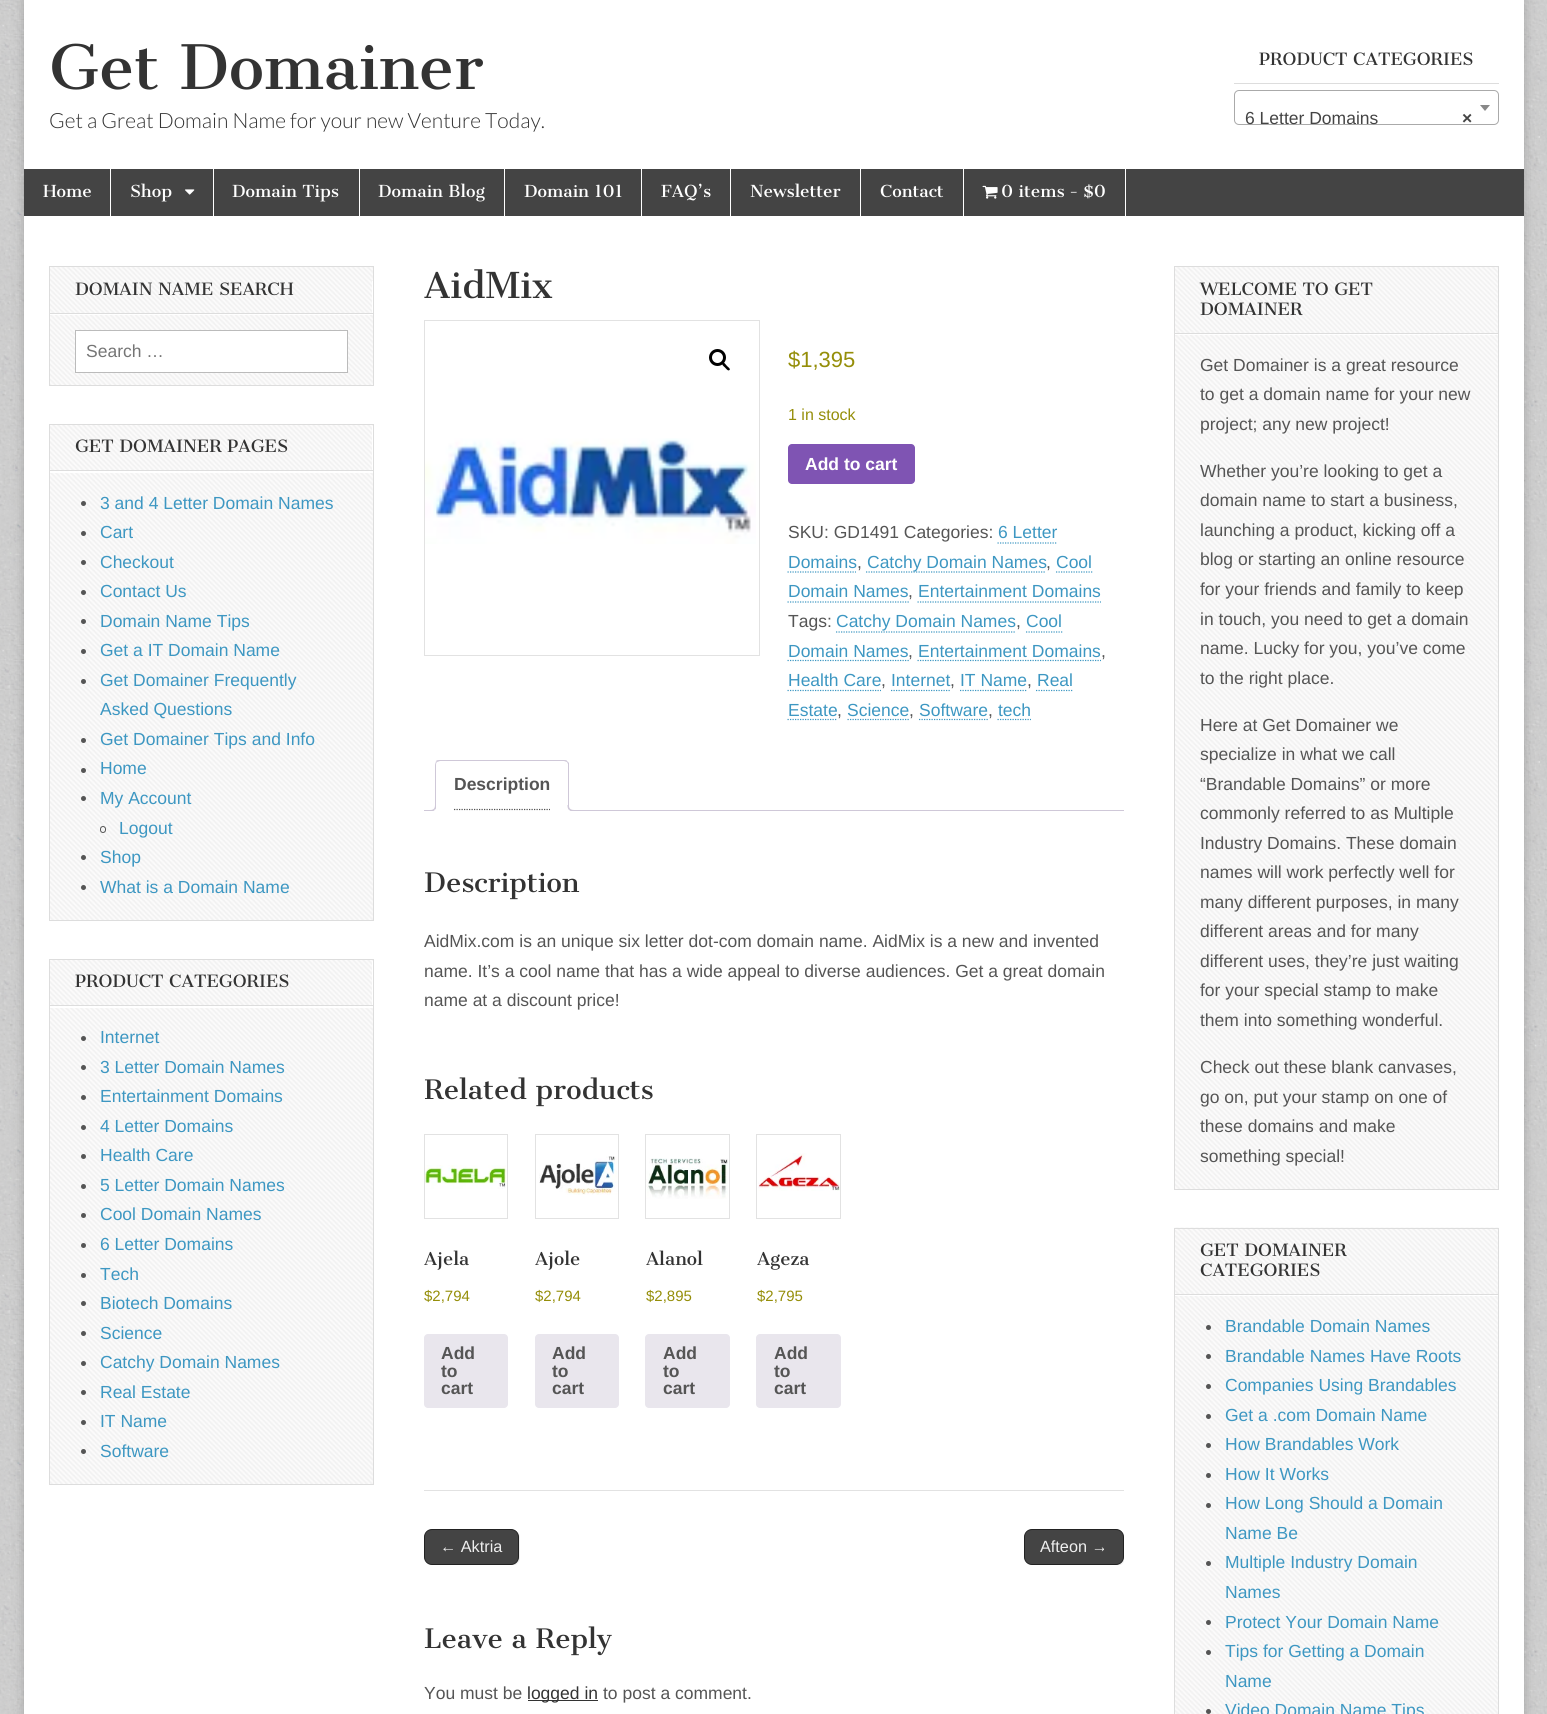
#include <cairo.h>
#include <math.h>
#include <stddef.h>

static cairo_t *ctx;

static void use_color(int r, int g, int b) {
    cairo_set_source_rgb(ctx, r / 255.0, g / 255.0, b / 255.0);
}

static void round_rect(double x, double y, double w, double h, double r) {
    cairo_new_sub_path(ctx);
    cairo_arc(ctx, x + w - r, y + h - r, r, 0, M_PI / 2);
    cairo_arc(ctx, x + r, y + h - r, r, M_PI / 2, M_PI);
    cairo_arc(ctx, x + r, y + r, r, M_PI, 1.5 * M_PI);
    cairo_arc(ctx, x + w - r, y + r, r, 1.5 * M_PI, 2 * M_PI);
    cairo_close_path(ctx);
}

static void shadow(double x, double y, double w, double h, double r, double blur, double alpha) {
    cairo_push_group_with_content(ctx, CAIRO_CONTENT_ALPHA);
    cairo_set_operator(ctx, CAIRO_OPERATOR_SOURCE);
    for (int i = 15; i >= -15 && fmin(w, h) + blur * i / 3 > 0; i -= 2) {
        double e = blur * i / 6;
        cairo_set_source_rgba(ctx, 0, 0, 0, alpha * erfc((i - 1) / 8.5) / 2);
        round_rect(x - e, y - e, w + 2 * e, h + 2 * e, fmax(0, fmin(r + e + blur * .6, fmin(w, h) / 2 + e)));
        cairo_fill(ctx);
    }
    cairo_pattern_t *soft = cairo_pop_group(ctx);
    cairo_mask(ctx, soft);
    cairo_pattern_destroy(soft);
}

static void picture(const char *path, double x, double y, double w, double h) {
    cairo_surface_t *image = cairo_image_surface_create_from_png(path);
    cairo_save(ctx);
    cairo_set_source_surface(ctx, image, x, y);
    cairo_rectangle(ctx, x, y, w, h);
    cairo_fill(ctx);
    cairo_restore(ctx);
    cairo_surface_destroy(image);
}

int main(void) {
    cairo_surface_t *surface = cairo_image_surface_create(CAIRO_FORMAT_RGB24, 1547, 1714);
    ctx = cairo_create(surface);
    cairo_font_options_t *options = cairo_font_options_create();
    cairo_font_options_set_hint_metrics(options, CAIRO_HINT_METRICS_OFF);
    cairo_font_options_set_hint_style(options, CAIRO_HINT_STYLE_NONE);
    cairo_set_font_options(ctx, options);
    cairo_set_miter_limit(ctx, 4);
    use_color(255, 255, 255);
    cairo_paint(ctx);
    picture("img1.png", 0, 0, 1547, 1714);
    use_color(0, 0, 0);
    shadow(24, 0, 1500, 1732, 0, 6, 0.2);
    use_color(255, 255, 255);
    cairo_rectangle(ctx, 24, 0, 1500, 1714);
    cairo_fill(ctx);
    cairo_select_font_face(ctx, "Cantata One", CAIRO_FONT_SLANT_NORMAL, CAIRO_FONT_WEIGHT_NORMAL);
    cairo_set_font_size(ctx, 60);
    use_color(51, 51, 51);
    cairo_move_to(ctx, 49, 89);
    cairo_show_text(ctx, "Get Domainer");
    cairo_select_font_face(ctx, "Lato Light", CAIRO_FONT_SLANT_NORMAL, CAIRO_FONT_WEIGHT_NORMAL);
    cairo_set_font_size(ctx, 21);
    cairo_move_to(ctx, 49, 128);
    cairo_show_text(ctx, "Get a Great Domain Name for your new Venture Today.");
    use_color(221, 221, 221);
    cairo_rectangle(ctx, 1234, 83, 265, 1);
    cairo_fill(ctx);
    cairo_select_font_face(ctx, "Cantata One", CAIRO_FONT_SLANT_NORMAL, CAIRO_FONT_WEIGHT_NORMAL);
    cairo_set_font_size(ctx, 16.6);
    use_color(51, 51, 51);
    cairo_move_to(ctx, 1259, 65);
    cairo_show_text(ctx, "PRODUCT CATEGORIES");
    round_rect(1234.5, 90.5, 264, 34, 4.5);
    use_color(170, 170, 170);
    cairo_set_line_width(ctx, 1);
    cairo_stroke(ctx);
    use_color(136, 136, 136);
    cairo_new_path(ctx);
    cairo_move_to(ctx, 1480, 105);
    cairo_line_to(ctx, 1490, 105);
    cairo_line_to(ctx, 1485, 111);
    cairo_close_path(ctx);
    cairo_fill(ctx);
    cairo_select_font_face(ctx, "Liberation Sans", CAIRO_FONT_SLANT_NORMAL, CAIRO_FONT_WEIGHT_NORMAL);
    cairo_set_font_size(ctx, 17.5);
    use_color(68, 68, 68);
    cairo_move_to(ctx, 1245, 124);
    cairo_show_text(ctx, "6 Letter Domains");
    cairo_select_font_face(ctx, "Liberation Sans", CAIRO_FONT_SLANT_NORMAL, CAIRO_FONT_WEIGHT_BOLD);
    cairo_move_to(ctx, 1462, 124);
    cairo_show_text(ctx, "×");
    cairo_rectangle(ctx, 24, 169, 1500, 47);
    cairo_fill(ctx);
    use_color(255, 255, 255);
    cairo_rectangle(ctx, 110, 169, 1, 47);
    cairo_fill(ctx);
    cairo_select_font_face(ctx, "Cantata One", CAIRO_FONT_SLANT_NORMAL, CAIRO_FONT_WEIGHT_NORMAL);
    cairo_set_font_size(ctx, 16.25);
    cairo_move_to(ctx, 43, 197);
    cairo_show_text(ctx, "Home");
    cairo_rectangle(ctx, 213, 169, 1, 47);
    cairo_fill(ctx);
    cairo_move_to(ctx, 130, 197);
    cairo_show_text(ctx, "Shop");
    picture("img2.png", 185, 189, 10, 6);
    cairo_rectangle(ctx, 359, 169, 1, 47);
    cairo_fill(ctx);
    cairo_move_to(ctx, 232, 197);
    cairo_show_text(ctx, "Domain Tips");
    cairo_rectangle(ctx, 504, 169, 1, 47);
    cairo_fill(ctx);
    cairo_move_to(ctx, 378, 197);
    cairo_show_text(ctx, "Domain Blog");
    cairo_rectangle(ctx, 641, 169, 1, 47);
    cairo_fill(ctx);
    cairo_move_to(ctx, 524, 197);
    cairo_show_text(ctx, "Domain 101");
    cairo_rectangle(ctx, 730, 169, 1, 47);
    cairo_fill(ctx);
    cairo_move_to(ctx, 661, 197);
    cairo_show_text(ctx, "FAQ’s");
    cairo_rectangle(ctx, 860, 169, 1, 47);
    cairo_fill(ctx);
    cairo_move_to(ctx, 750, 197);
    cairo_show_text(ctx, "Newsletter");
    cairo_rectangle(ctx, 963, 169, 1, 47);
    cairo_fill(ctx);
    cairo_move_to(ctx, 880, 197);
    cairo_show_text(ctx, "Contact");
    cairo_rectangle(ctx, 1125, 169, 1, 47);
    cairo_fill(ctx);
    picture("img3.png", 982, 185, 16, 14);
    cairo_move_to(ctx, 1001, 197);
    cairo_show_text(ctx, "0 items");
    cairo_move_to(ctx, 1069, 197);
    cairo_show_text(ctx, "-");
    cairo_move_to(ctx, 1083, 197);
    cairo_show_text(ctx, "$0");
    picture("img4.png", 50, 267, 323, 118);
    cairo_rectangle(ctx, 49.5, 266.5, 324, 119);
    use_color(221, 221, 221);
    cairo_stroke(ctx);
    use_color(255, 255, 255);
    cairo_new_path(ctx);
    cairo_move_to(ctx, 50, 314);
    cairo_line_to(ctx, 50, 315);
    cairo_line_to(ctx, 373, 315);
    cairo_line_to(ctx, 373, 281);
    cairo_line_to(ctx, 372, 281);
    cairo_line_to(ctx, 372, 314);
    cairo_close_path(ctx);
    cairo_fill(ctx);
    use_color(221, 221, 221);
    cairo_rectangle(ctx, 50, 313, 323, 1);
    cairo_fill(ctx);
    cairo_set_font_size(ctx, 16.6);
    use_color(51, 51, 51);
    cairo_move_to(ctx, 75, 295);
    cairo_show_text(ctx, "DOMAIN NAME SEARCH");
    use_color(255, 255, 255);
    cairo_rectangle(ctx, 75.5, 330.5, 272, 42);
    cairo_fill_preserve(ctx);
    use_color(187, 187, 187);
    cairo_stroke(ctx);
    cairo_select_font_face(ctx, "Liberation Sans", CAIRO_FONT_SLANT_NORMAL, CAIRO_FONT_WEIGHT_NORMAL);
    cairo_set_font_size(ctx, 17.5);
    use_color(117, 117, 117);
    cairo_move_to(ctx, 86, 357);
    cairo_show_text(ctx, "Search …");
    picture("img5.png", 50, 425, 323, 495);
    cairo_rectangle(ctx, 49.5, 424.5, 324, 496);
    use_color(221, 221, 221);
    cairo_stroke(ctx);
    use_color(255, 255, 255);
    cairo_new_path(ctx);
    cairo_move_to(ctx, 50, 471);
    cairo_line_to(ctx, 50, 473);
    cairo_line_to(ctx, 373, 473);
    cairo_line_to(ctx, 373, 426);
    cairo_line_to(ctx, 372, 426);
    cairo_line_to(ctx, 372, 471);
    cairo_close_path(ctx);
    cairo_fill(ctx);
    use_color(221, 221, 221);
    cairo_rectangle(ctx, 50, 470, 323, 1);
    cairo_fill(ctx);
    cairo_select_font_face(ctx, "Cantata One", CAIRO_FONT_SLANT_NORMAL, CAIRO_FONT_WEIGHT_NORMAL);
    cairo_set_font_size(ctx, 16.6);
    use_color(51, 51, 51);
    cairo_move_to(ctx, 75, 452);
    cairo_show_text(ctx, "GET DOMAINER PAGES");
    use_color(85, 85, 85);
    cairo_new_path(ctx);
    cairo_arc(ctx, 83.5, 503.5, 2.5, 0, 2 * M_PI);
    cairo_fill(ctx);
    cairo_select_font_face(ctx, "Liberation Sans", CAIRO_FONT_SLANT_NORMAL, CAIRO_FONT_WEIGHT_NORMAL);
    cairo_set_font_size(ctx, 17.5);
    use_color(61, 151, 194);
    cairo_move_to(ctx, 100, 509);
    cairo_show_text(ctx, "3 and 4 Letter Domain Names");
    use_color(85, 85, 85);
    cairo_new_path(ctx);
    cairo_arc(ctx, 83.5, 533.5, 2.5, 0, 2 * M_PI);
    cairo_fill(ctx);
    use_color(61, 151, 194);
    cairo_move_to(ctx, 100, 538);
    cairo_show_text(ctx, "Cart");
    use_color(85, 85, 85);
    cairo_new_path(ctx);
    cairo_arc(ctx, 83.5, 562.5, 2.5, 0, 2 * M_PI);
    cairo_fill(ctx);
    use_color(61, 151, 194);
    cairo_move_to(ctx, 100, 568);
    cairo_show_text(ctx, "Checkout");
    use_color(85, 85, 85);
    cairo_new_path(ctx);
    cairo_arc(ctx, 83.5, 592.5, 2.5, 0, 2 * M_PI);
    cairo_fill(ctx);
    use_color(61, 151, 194);
    cairo_move_to(ctx, 100, 597);
    cairo_show_text(ctx, "Contact Us");
    use_color(85, 85, 85);
    cairo_new_path(ctx);
    cairo_arc(ctx, 83.5, 621.5, 2.5, 0, 2 * M_PI);
    cairo_fill(ctx);
    use_color(61, 151, 194);
    cairo_move_to(ctx, 100, 627);
    cairo_show_text(ctx, "Domain Name Tips");
    use_color(85, 85, 85);
    cairo_new_path(ctx);
    cairo_arc(ctx, 83.5, 651.5, 2.5, 0, 2 * M_PI);
    cairo_fill(ctx);
    use_color(61, 151, 194);
    cairo_move_to(ctx, 100, 656);
    cairo_show_text(ctx, "Get a IT Domain Name");
    use_color(85, 85, 85);
    cairo_new_path(ctx);
    cairo_arc(ctx, 83.5, 681.5, 2.5, 0, 2 * M_PI);
    cairo_fill(ctx);
    use_color(61, 151, 194);
    cairo_move_to(ctx, 100, 686);
    cairo_show_text(ctx, "Get Domainer Frequently");
    cairo_move_to(ctx, 100, 715);
    cairo_show_text(ctx, "Asked Questions");
    use_color(85, 85, 85);
    cairo_new_path(ctx);
    cairo_arc(ctx, 83.5, 740.5, 2.5, 0, 2 * M_PI);
    cairo_fill(ctx);
    use_color(61, 151, 194);
    cairo_move_to(ctx, 100, 745);
    cairo_show_text(ctx, "Get Domainer Tips and Info");
    use_color(85, 85, 85);
    cairo_new_path(ctx);
    cairo_arc(ctx, 83.5, 770.5, 2.5, 0, 2 * M_PI);
    cairo_fill(ctx);
    use_color(61, 151, 194);
    cairo_move_to(ctx, 100, 774);
    cairo_show_text(ctx, "Home");
    use_color(85, 85, 85);
    cairo_new_path(ctx);
    cairo_arc(ctx, 83.5, 798.5, 2.5, 0, 2 * M_PI);
    cairo_fill(ctx);
    use_color(61, 151, 194);
    cairo_move_to(ctx, 100, 804);
    cairo_show_text(ctx, "My Account");
    round_rect(100.5, 826.5, 5, 6, 2.5);
    use_color(85, 85, 85);
    cairo_stroke(ctx);
    use_color(61, 151, 194);
    cairo_move_to(ctx, 119, 834);
    cairo_show_text(ctx, "Logout");
    use_color(85, 85, 85);
    cairo_new_path(ctx);
    cairo_arc(ctx, 83.5, 857.5, 2.5, 0, 2 * M_PI);
    cairo_fill(ctx);
    use_color(61, 151, 194);
    cairo_move_to(ctx, 100, 863);
    cairo_show_text(ctx, "Shop");
    use_color(85, 85, 85);
    cairo_new_path(ctx);
    cairo_arc(ctx, 83.5, 887.5, 2.5, 0, 2 * M_PI);
    cairo_fill(ctx);
    use_color(61, 151, 194);
    cairo_move_to(ctx, 100, 893);
    cairo_show_text(ctx, "What is a Domain Name");
    picture("img6.png", 50, 960, 323, 524);
    cairo_rectangle(ctx, 49.5, 959.5, 324, 525);
    use_color(221, 221, 221);
    cairo_stroke(ctx);
    use_color(255, 255, 255);
    cairo_new_path(ctx);
    cairo_move_to(ctx, 50, 1006);
    cairo_line_to(ctx, 50, 1008);
    cairo_line_to(ctx, 373, 1008);
    cairo_line_to(ctx, 373, 961);
    cairo_line_to(ctx, 372, 961);
    cairo_line_to(ctx, 372, 1006);
    cairo_close_path(ctx);
    cairo_fill(ctx);
    use_color(221, 221, 221);
    cairo_rectangle(ctx, 50, 1005, 323, 1);
    cairo_fill(ctx);
    cairo_select_font_face(ctx, "Cantata One", CAIRO_FONT_SLANT_NORMAL, CAIRO_FONT_WEIGHT_NORMAL);
    cairo_set_font_size(ctx, 16.6);
    use_color(51, 51, 51);
    cairo_move_to(ctx, 75, 987);
    cairo_show_text(ctx, "PRODUCT CATEGORIES");
    use_color(85, 85, 85);
    cairo_new_path(ctx);
    cairo_arc(ctx, 83.5, 1038.5, 2.5, 0, 2 * M_PI);
    cairo_fill(ctx);
    cairo_select_font_face(ctx, "Liberation Sans", CAIRO_FONT_SLANT_NORMAL, CAIRO_FONT_WEIGHT_NORMAL);
    cairo_set_font_size(ctx, 17.5);
    use_color(61, 151, 194);
    cairo_move_to(ctx, 100, 1043);
    cairo_show_text(ctx, "Internet");
    use_color(85, 85, 85);
    cairo_new_path(ctx);
    cairo_arc(ctx, 83.5, 1067.5, 2.5, 0, 2 * M_PI);
    cairo_fill(ctx);
    use_color(61, 151, 194);
    cairo_move_to(ctx, 100, 1073);
    cairo_show_text(ctx, "3 Letter Domain Names");
    use_color(85, 85, 85);
    cairo_new_path(ctx);
    cairo_arc(ctx, 83.5, 1097.5, 2.5, 0, 2 * M_PI);
    cairo_fill(ctx);
    use_color(61, 151, 194);
    cairo_move_to(ctx, 100, 1102);
    cairo_show_text(ctx, "Entertainment Domains");
    use_color(85, 85, 85);
    cairo_new_path(ctx);
    cairo_arc(ctx, 83.5, 1127.5, 2.5, 0, 2 * M_PI);
    cairo_fill(ctx);
    use_color(61, 151, 194);
    cairo_move_to(ctx, 100, 1132);
    cairo_show_text(ctx, "4 Letter Domains");
    use_color(85, 85, 85);
    cairo_new_path(ctx);
    cairo_arc(ctx, 83.5, 1156.5, 2.5, 0, 2 * M_PI);
    cairo_fill(ctx);
    use_color(61, 151, 194);
    cairo_move_to(ctx, 100, 1161);
    cairo_show_text(ctx, "Health Care");
    use_color(85, 85, 85);
    cairo_new_path(ctx);
    cairo_arc(ctx, 83.5, 1186.5, 2.5, 0, 2 * M_PI);
    cairo_fill(ctx);
    use_color(61, 151, 194);
    cairo_move_to(ctx, 100, 1191);
    cairo_show_text(ctx, "5 Letter Domain Names");
    use_color(85, 85, 85);
    cairo_new_path(ctx);
    cairo_arc(ctx, 83.5, 1215.5, 2.5, 0, 2 * M_PI);
    cairo_fill(ctx);
    use_color(61, 151, 194);
    cairo_move_to(ctx, 100, 1220);
    cairo_show_text(ctx, "Cool Domain Names");
    use_color(85, 85, 85);
    cairo_new_path(ctx);
    cairo_arc(ctx, 83.5, 1245.5, 2.5, 0, 2 * M_PI);
    cairo_fill(ctx);
    use_color(61, 151, 194);
    cairo_move_to(ctx, 100, 1250);
    cairo_show_text(ctx, "6 Letter Domains");
    use_color(85, 85, 85);
    cairo_new_path(ctx);
    cairo_arc(ctx, 83.5, 1275.5, 2.5, 0, 2 * M_PI);
    cairo_fill(ctx);
    use_color(61, 151, 194);
    cairo_move_to(ctx, 100, 1280);
    cairo_show_text(ctx, "Tech");
    use_color(85, 85, 85);
    cairo_new_path(ctx);
    cairo_arc(ctx, 83.5, 1303.5, 2.5, 0, 2 * M_PI);
    cairo_fill(ctx);
    use_color(61, 151, 194);
    cairo_move_to(ctx, 100, 1309);
    cairo_show_text(ctx, "Biotech Domains");
    use_color(85, 85, 85);
    cairo_new_path(ctx);
    cairo_arc(ctx, 83.5, 1333.5, 2.5, 0, 2 * M_PI);
    cairo_fill(ctx);
    use_color(61, 151, 194);
    cairo_move_to(ctx, 100, 1339);
    cairo_show_text(ctx, "Science");
    use_color(85, 85, 85);
    cairo_new_path(ctx);
    cairo_arc(ctx, 83.5, 1363.5, 2.5, 0, 2 * M_PI);
    cairo_fill(ctx);
    use_color(61, 151, 194);
    cairo_move_to(ctx, 100, 1368);
    cairo_show_text(ctx, "Catchy Domain Names");
    use_color(85, 85, 85);
    cairo_new_path(ctx);
    cairo_arc(ctx, 83.5, 1392.5, 2.5, 0, 2 * M_PI);
    cairo_fill(ctx);
    use_color(61, 151, 194);
    cairo_move_to(ctx, 100, 1398);
    cairo_show_text(ctx, "Real Estate");
    use_color(85, 85, 85);
    cairo_new_path(ctx);
    cairo_arc(ctx, 83.5, 1422.5, 2.5, 0, 2 * M_PI);
    cairo_fill(ctx);
    use_color(61, 151, 194);
    cairo_move_to(ctx, 100, 1427);
    cairo_show_text(ctx, "IT Name");
    use_color(85, 85, 85);
    cairo_new_path(ctx);
    cairo_arc(ctx, 83.5, 1451.5, 2.5, 0, 2 * M_PI);
    cairo_fill(ctx);
    use_color(61, 151, 194);
    cairo_move_to(ctx, 100, 1457);
    cairo_show_text(ctx, "Software");
    use_color(226, 226, 226);
    cairo_rectangle(ctx, 424, 1490, 700, 1);
    cairo_fill(ctx);
    cairo_select_font_face(ctx, "Cantata One", CAIRO_FONT_SLANT_NORMAL, CAIRO_FONT_WEIGHT_NORMAL);
    cairo_set_font_size(ctx, 35);
    use_color(51, 51, 51);
    cairo_move_to(ctx, 424, 298);
    cairo_show_text(ctx, "AidMix");
    cairo_rectangle(ctx, 424.5, 320.5, 335, 335);
    use_color(226, 226, 226);
    cairo_stroke(ctx);
    picture("img7.png", 425, 438, 331, 106);
    cairo_arc(ctx, 717.5, 357.5, 7, 0, 2 * M_PI);
    use_color(0, 0, 0);
    cairo_set_line_width(ctx, 3);
    cairo_stroke(ctx);
    cairo_new_path(ctx);
    cairo_move_to(ctx, 722.5, 363);
    cairo_curve_to(ctx, 724, 361.5, 726, 365, 727, 366);
    cairo_curve_to(ctx, 727.5, 366.5, 731, 369, 729.5, 370);
    cairo_curve_to(ctx, 728, 371.5, 726, 368.5, 725, 367.5);
    cairo_curve_to(ctx, 724.5, 367, 721, 364.5, 722.5, 363);
    cairo_close_path(ctx);
    cairo_fill(ctx);
    cairo_select_font_face(ctx, "Liberation Sans", CAIRO_FONT_SLANT_NORMAL, CAIRO_FONT_WEIGHT_NORMAL);
    cairo_set_font_size(ctx, 22);
    use_color(149, 142, 9);
    cairo_move_to(ctx, 788, 367);
    cairo_show_text(ctx, "$1,395");
    cairo_set_font_size(ctx, 16);
    cairo_move_to(ctx, 788, 420);
    cairo_show_text(ctx, "1 in stock");
    use_color(127, 84, 179);
    round_rect(788, 444, 127, 40, 4);
    cairo_fill(ctx);
    cairo_select_font_face(ctx, "Liberation Sans", CAIRO_FONT_SLANT_NORMAL, CAIRO_FONT_WEIGHT_BOLD);
    cairo_set_font_size(ctx, 17.5);
    use_color(255, 255, 255);
    cairo_move_to(ctx, 805, 470);
    cairo_show_text(ctx, "Add to cart");
    cairo_select_font_face(ctx, "Liberation Sans", CAIRO_FONT_SLANT_NORMAL, CAIRO_FONT_WEIGHT_NORMAL);
    use_color(85, 85, 85);
    cairo_move_to(ctx, 788, 538);
    cairo_show_text(ctx, "SKU: GD1491 Categories:");
    use_color(61, 151, 194);
    cairo_move_to(ctx, 998, 538);
    cairo_show_text(ctx, "6 Letter");
    cairo_new_path(ctx);
    cairo_move_to(ctx, 997.5, 543);
    cairo_line_to(ctx, 1057.5, 543);
    cairo_set_line_width(ctx, 1.2);
    cairo_set_dash(ctx, (double[]){1.25, 1.25}, 2, 0);
    cairo_stroke(ctx);
    cairo_move_to(ctx, 788, 568);
    cairo_show_text(ctx, "Domains");
    use_color(85, 85, 85);
    cairo_move_to(ctx, 857, 568);
    cairo_show_text(ctx, ",");
    cairo_new_path(ctx);
    cairo_move_to(ctx, 787.5, 572);
    cairo_line_to(ctx, 856, 572);
    use_color(61, 151, 194);
    cairo_stroke(ctx);
    cairo_new_path(ctx);
    cairo_move_to(ctx, 866, 572);
    cairo_line_to(ctx, 1046, 572);
    cairo_stroke(ctx);
    cairo_move_to(ctx, 867, 568);
    cairo_show_text(ctx, "Catchy Domain Names");
    use_color(85, 85, 85);
    cairo_move_to(ctx, 1046, 568);
    cairo_show_text(ctx, ",");
    cairo_new_path(ctx);
    cairo_move_to(ctx, 1056, 572);
    cairo_line_to(ctx, 1092.5, 572);
    use_color(61, 151, 194);
    cairo_stroke(ctx);
    cairo_move_to(ctx, 1056, 568);
    cairo_show_text(ctx, "Cool");
    cairo_move_to(ctx, 788, 597);
    cairo_show_text(ctx, "Domain Names");
    use_color(85, 85, 85);
    cairo_move_to(ctx, 908, 597);
    cairo_show_text(ctx, ",");
    cairo_new_path(ctx);
    cairo_move_to(ctx, 787.5, 602);
    cairo_line_to(ctx, 909, 602);
    use_color(61, 151, 194);
    cairo_stroke(ctx);
    cairo_new_path(ctx);
    cairo_move_to(ctx, 917.5, 602);
    cairo_line_to(ctx, 1101, 602);
    cairo_stroke(ctx);
    cairo_move_to(ctx, 918, 597);
    cairo_show_text(ctx, "Entertainment Domains");
    use_color(85, 85, 85);
    cairo_move_to(ctx, 788, 627);
    cairo_show_text(ctx, "Tags:");
    use_color(61, 151, 194);
    cairo_move_to(ctx, 836, 627);
    cairo_show_text(ctx, "Catchy Domain Names");
    use_color(85, 85, 85);
    cairo_move_to(ctx, 1016, 627);
    cairo_show_text(ctx, ",");
    cairo_new_path(ctx);
    cairo_move_to(ctx, 836, 632);
    cairo_line_to(ctx, 1016, 632);
    use_color(61, 151, 194);
    cairo_stroke(ctx);
    cairo_new_path(ctx);
    cairo_move_to(ctx, 1026, 632);
    cairo_line_to(ctx, 1062.5, 632);
    cairo_stroke(ctx);
    cairo_move_to(ctx, 1026, 627);
    cairo_show_text(ctx, "Cool");
    cairo_move_to(ctx, 788, 657);
    cairo_show_text(ctx, "Domain Names");
    use_color(85, 85, 85);
    cairo_move_to(ctx, 908, 657);
    cairo_show_text(ctx, ",");
    cairo_new_path(ctx);
    cairo_move_to(ctx, 787.5, 660.5);
    cairo_line_to(ctx, 909, 660.5);
    use_color(61, 151, 194);
    cairo_stroke(ctx);
    cairo_move_to(ctx, 918, 657);
    cairo_show_text(ctx, "Entertainment Domains");
    use_color(85, 85, 85);
    cairo_move_to(ctx, 1101, 657);
    cairo_show_text(ctx, ",");
    cairo_new_path(ctx);
    cairo_move_to(ctx, 917.5, 660.5);
    cairo_line_to(ctx, 1101, 660.5);
    use_color(61, 151, 194);
    cairo_stroke(ctx);
    cairo_move_to(ctx, 788, 686);
    cairo_show_text(ctx, "Health Care");
    use_color(85, 85, 85);
    cairo_move_to(ctx, 881, 686);
    cairo_show_text(ctx, ",");
    cairo_new_path(ctx);
    cairo_move_to(ctx, 787.5, 690.5);
    cairo_line_to(ctx, 881, 690.5);
    use_color(61, 151, 194);
    cairo_stroke(ctx);
    cairo_move_to(ctx, 891, 686);
    cairo_show_text(ctx, "Internet");
    use_color(85, 85, 85);
    cairo_move_to(ctx, 950, 686);
    cairo_show_text(ctx, ",");
    cairo_new_path(ctx);
    cairo_move_to(ctx, 891, 690.5);
    cairo_line_to(ctx, 950, 690.5);
    use_color(61, 151, 194);
    cairo_stroke(ctx);
    cairo_move_to(ctx, 960, 686);
    cairo_show_text(ctx, "IT Name");
    use_color(85, 85, 85);
    cairo_move_to(ctx, 1027, 686);
    cairo_show_text(ctx, ",");
    cairo_new_path(ctx);
    cairo_move_to(ctx, 960, 690.5);
    cairo_line_to(ctx, 1027.5, 690.5);
    use_color(61, 151, 194);
    cairo_stroke(ctx);
    cairo_new_path(ctx);
    cairo_move_to(ctx, 1036, 690.5);
    cairo_line_to(ctx, 1072.5, 690.5);
    cairo_stroke(ctx);
    cairo_move_to(ctx, 1037, 686);
    cairo_show_text(ctx, "Real");
    cairo_move_to(ctx, 788, 716);
    cairo_show_text(ctx, "Estate");
    use_color(85, 85, 85);
    cairo_move_to(ctx, 837, 716);
    cairo_show_text(ctx, ",");
    cairo_new_path(ctx);
    cairo_move_to(ctx, 787.5, 719.5);
    cairo_line_to(ctx, 837.5, 719.5);
    use_color(61, 151, 194);
    cairo_stroke(ctx);
    cairo_move_to(ctx, 847, 716);
    cairo_show_text(ctx, "Science");
    use_color(85, 85, 85);
    cairo_move_to(ctx, 909, 716);
    cairo_show_text(ctx, ",");
    cairo_new_path(ctx);
    cairo_move_to(ctx, 847.5, 719.5);
    cairo_line_to(ctx, 910, 719.5);
    use_color(61, 151, 194);
    cairo_stroke(ctx);
    cairo_move_to(ctx, 919, 716);
    cairo_show_text(ctx, "Software");
    use_color(85, 85, 85);
    cairo_move_to(ctx, 988, 716);
    cairo_show_text(ctx, ",");
    cairo_new_path(ctx);
    cairo_move_to(ctx, 919, 719.5);
    cairo_line_to(ctx, 989, 719.5);
    use_color(61, 151, 194);
    cairo_stroke(ctx);
    cairo_new_path(ctx);
    cairo_move_to(ctx, 997.5, 719.5);
    cairo_line_to(ctx, 1031, 719.5);
    cairo_stroke(ctx);
    cairo_move_to(ctx, 998, 716);
    cairo_show_text(ctx, "tech");
    use_color(207, 200, 216);
    cairo_rectangle(ctx, 424, 810, 700, 1);
    cairo_fill(ctx);
    use_color(255, 255, 255);
    cairo_new_path(ctx);
    cairo_move_to(ctx, 440, 760);
    cairo_line_to(ctx, 564, 760);
    cairo_curve_to(ctx, 567, 760, 569, 762, 569, 765);
    cairo_line_to(ctx, 569, 811);
    cairo_line_to(ctx, 435, 811);
    cairo_line_to(ctx, 435, 765);
    cairo_curve_to(ctx, 435, 762, 437, 760, 440, 760);
    cairo_close_path(ctx);
    cairo_fill(ctx);
    use_color(207, 200, 216);
    cairo_new_path(ctx);
    cairo_move_to(ctx, 440, 760);
    cairo_curve_to(ctx, 438, 760, 437, 760, 436, 761);
    cairo_line_to(ctx, 437, 762);
    cairo_line_to(ctx, 440, 761);
    cairo_line_to(ctx, 564, 761);
    cairo_line_to(ctx, 567, 762);
    cairo_line_to(ctx, 567, 761);
    cairo_curve_to(ctx, 567, 760, 565, 760, 564, 760);
    cairo_close_path(ctx);
    cairo_fill(ctx);
    cairo_new_path(ctx);
    cairo_move_to(ctx, 569, 811);
    cairo_line_to(ctx, 568, 810);
    cairo_line_to(ctx, 568, 764);
    cairo_line_to(ctx, 567, 762);
    cairo_line_to(ctx, 567, 761);
    cairo_line_to(ctx, 569, 763);
    cairo_close_path(ctx);
    cairo_fill(ctx);
    cairo_new_path(ctx);
    cairo_move_to(ctx, 435, 765);
    cairo_line_to(ctx, 435, 811);
    cairo_line_to(ctx, 436, 810);
    cairo_line_to(ctx, 436, 765);
    cairo_curve_to(ctx, 436, 764, 436, 763, 437, 762);
    cairo_line_to(ctx, 436, 761);
    cairo_curve_to(ctx, 436, 762, 435, 764, 435, 765);
    cairo_close_path(ctx);
    cairo_fill(ctx);
    cairo_new_path(ctx);
    cairo_move_to(ctx, 454, 809.5);
    cairo_line_to(ctx, 550, 809.5);
    use_color(81, 81, 81);
    cairo_stroke(ctx);
    cairo_select_font_face(ctx, "Liberation Sans", CAIRO_FONT_SLANT_NORMAL, CAIRO_FONT_WEIGHT_BOLD);
    use_color(85, 85, 85);
    cairo_move_to(ctx, 454, 790);
    cairo_show_text(ctx, "Description");
    cairo_save(ctx);
    cairo_rectangle(ctx, 424, 760, 700, 51);
    cairo_clip(ctx);
    use_color(255, 255, 255);
    cairo_new_path(ctx);
    cairo_move_to(ctx, 433, 811);
    cairo_line_to(ctx, 433, 814);
    cairo_curve_to(ctx, 437, 814, 439, 812, 439, 808);
    cairo_line_to(ctx, 436, 808);
    cairo_curve_to(ctx, 435.5, 809.5, 434.5, 810.5, 433, 811);
    cairo_close_path(ctx);
    cairo_fill(ctx);
    cairo_restore(ctx);
    use_color(207, 200, 216);
    cairo_set_fill_rule(ctx, CAIRO_FILL_RULE_EVEN_ODD);
    cairo_new_path(ctx);
    cairo_move_to(ctx, 430, 805);
    cairo_line_to(ctx, 436, 805);
    cairo_curve_to(ctx, 436, 809.5, 434.5, 811, 430, 811);
    cairo_close_path(ctx);
    cairo_move_to(ctx, 430, 805);
    cairo_line_to(ctx, 435, 805);
    cairo_curve_to(ctx, 435, 808.5, 433.5, 810, 430, 810);
    cairo_close_path(ctx);
    cairo_fill(ctx);
    cairo_save(ctx);
    cairo_set_fill_rule(ctx, CAIRO_FILL_RULE_WINDING);
    cairo_rectangle(ctx, 424, 760, 700, 51);
    cairo_clip(ctx);
    use_color(255, 255, 255);
    cairo_new_path(ctx);
    cairo_move_to(ctx, 565, 808);
    cairo_curve_to(ctx, 565, 812, 567, 814, 571, 814);
    cairo_line_to(ctx, 571, 811);
    cairo_curve_to(ctx, 569.5, 810.5, 568.5, 809.5, 568, 808);
    cairo_close_path(ctx);
    cairo_fill(ctx);
    cairo_restore(ctx);
    cairo_new_path(ctx);
    cairo_move_to(ctx, 567.5, 805);
    cairo_line_to(ctx, 574, 805);
    cairo_line_to(ctx, 574, 811);
    cairo_curve_to(ctx, 570.5, 811, 567.5, 810, 567.5, 806);
    cairo_close_path(ctx);
    cairo_move_to(ctx, 569, 805);
    cairo_line_to(ctx, 574, 805);
    cairo_line_to(ctx, 574, 810);
    cairo_curve_to(ctx, 571.5, 810, 569, 809, 569, 806);
    cairo_close_path(ctx);
    cairo_fill(ctx);
    cairo_select_font_face(ctx, "Cantata One", CAIRO_FONT_SLANT_NORMAL, CAIRO_FONT_WEIGHT_NORMAL);
    cairo_set_font_size(ctx, 26.25);
    use_color(51, 51, 51);
    cairo_move_to(ctx, 424, 892);
    cairo_show_text(ctx, "Description");
    cairo_select_font_face(ctx, "Liberation Sans", CAIRO_FONT_SLANT_NORMAL, CAIRO_FONT_WEIGHT_NORMAL);
    cairo_set_font_size(ctx, 17.5);
    use_color(85, 85, 85);
    cairo_move_to(ctx, 424, 947);
    cairo_show_text(ctx, "AidMix.com is an unique six letter dot-com domain name. AidMix is a new and invented");
    cairo_move_to(ctx, 424, 977);
    cairo_show_text(ctx, "name. It’s a cool name that has a wide appeal to diverse audiences. Get a great domain");
    cairo_move_to(ctx, 424, 1006);
    cairo_show_text(ctx, "name at a discount price!");
    cairo_select_font_face(ctx, "Cantata One", CAIRO_FONT_SLANT_NORMAL, CAIRO_FONT_WEIGHT_NORMAL);
    cairo_set_font_size(ctx, 26.25);
    use_color(51, 51, 51);
    cairo_move_to(ctx, 424, 1099);
    cairo_show_text(ctx, "Related products");
    cairo_rectangle(ctx, 424.5, 1134.5, 83, 84);
    use_color(226, 226, 226);
    cairo_set_line_width(ctx, 1);
    cairo_set_dash(ctx, NULL, 0, 0);
    cairo_stroke(ctx);
    picture("img8.png", 425, 1165, 82, 24);
    cairo_set_font_size(ctx, 17.5);
    use_color(51, 51, 51);
    cairo_move_to(ctx, 424, 1265);
    cairo_show_text(ctx, "Ajela");
    cairo_select_font_face(ctx, "Liberation Sans", CAIRO_FONT_SLANT_NORMAL, CAIRO_FONT_WEIGHT_NORMAL);
    cairo_set_font_size(ctx, 15);
    use_color(149, 142, 9);
    cairo_move_to(ctx, 424, 1301);
    cairo_show_text(ctx, "$2,794");
    use_color(233, 230, 237);
    round_rect(424, 1334, 84, 74, 4);
    cairo_fill(ctx);
    cairo_select_font_face(ctx, "Liberation Sans", CAIRO_FONT_SLANT_NORMAL, CAIRO_FONT_WEIGHT_BOLD);
    cairo_set_font_size(ctx, 17.5);
    use_color(85, 85, 85);
    cairo_move_to(ctx, 441, 1359);
    cairo_show_text(ctx, "Add");
    cairo_move_to(ctx, 441, 1377);
    cairo_show_text(ctx, "to");
    cairo_move_to(ctx, 441, 1394);
    cairo_show_text(ctx, "cart");
    cairo_rectangle(ctx, 535.5, 1134.5, 83, 84);
    use_color(226, 226, 226);
    cairo_stroke(ctx);
    picture("img9.png", 539, 1156, 79, 39);
    cairo_select_font_face(ctx, "Cantata One", CAIRO_FONT_SLANT_NORMAL, CAIRO_FONT_WEIGHT_NORMAL);
    use_color(51, 51, 51);
    cairo_move_to(ctx, 535, 1265);
    cairo_show_text(ctx, "Ajole");
    cairo_select_font_face(ctx, "Liberation Sans", CAIRO_FONT_SLANT_NORMAL, CAIRO_FONT_WEIGHT_NORMAL);
    cairo_set_font_size(ctx, 15);
    use_color(149, 142, 9);
    cairo_move_to(ctx, 535, 1301);
    cairo_show_text(ctx, "$2,794");
    use_color(233, 230, 237);
    round_rect(535, 1334, 84, 74, 4);
    cairo_fill(ctx);
    cairo_select_font_face(ctx, "Liberation Sans", CAIRO_FONT_SLANT_NORMAL, CAIRO_FONT_WEIGHT_BOLD);
    cairo_set_font_size(ctx, 17.5);
    use_color(85, 85, 85);
    cairo_move_to(ctx, 552, 1359);
    cairo_show_text(ctx, "Add");
    cairo_move_to(ctx, 552, 1377);
    cairo_show_text(ctx, "to");
    cairo_move_to(ctx, 552, 1394);
    cairo_show_text(ctx, "cart");
    cairo_rectangle(ctx, 645.5, 1134.5, 84, 84);
    use_color(226, 226, 226);
    cairo_stroke(ctx);
    picture("img10.png", 646, 1158, 82, 41);
    cairo_select_font_face(ctx, "Cantata One", CAIRO_FONT_SLANT_NORMAL, CAIRO_FONT_WEIGHT_NORMAL);
    use_color(51, 51, 51);
    cairo_move_to(ctx, 646, 1265);
    cairo_show_text(ctx, "Alanol");
    cairo_select_font_face(ctx, "Liberation Sans", CAIRO_FONT_SLANT_NORMAL, CAIRO_FONT_WEIGHT_NORMAL);
    cairo_set_font_size(ctx, 15);
    use_color(149, 142, 9);
    cairo_move_to(ctx, 646, 1301);
    cairo_show_text(ctx, "$2,895");
    use_color(233, 230, 237);
    round_rect(645, 1334, 85, 74, 4);
    cairo_fill(ctx);
    cairo_select_font_face(ctx, "Liberation Sans", CAIRO_FONT_SLANT_NORMAL, CAIRO_FONT_WEIGHT_BOLD);
    cairo_set_font_size(ctx, 17.5);
    use_color(85, 85, 85);
    cairo_move_to(ctx, 663, 1359);
    cairo_show_text(ctx, "Add");
    cairo_move_to(ctx, 663, 1377);
    cairo_show_text(ctx, "to");
    cairo_move_to(ctx, 663, 1394);
    cairo_show_text(ctx, "cart");
    cairo_rectangle(ctx, 756.5, 1134.5, 84, 84);
    use_color(226, 226, 226);
    cairo_stroke(ctx);
    picture("img11.png", 758, 1153, 82, 38);
    cairo_select_font_face(ctx, "Cantata One", CAIRO_FONT_SLANT_NORMAL, CAIRO_FONT_WEIGHT_NORMAL);
    use_color(51, 51, 51);
    cairo_move_to(ctx, 757, 1265);
    cairo_show_text(ctx, "Ageza");
    cairo_select_font_face(ctx, "Liberation Sans", CAIRO_FONT_SLANT_NORMAL, CAIRO_FONT_WEIGHT_NORMAL);
    cairo_set_font_size(ctx, 15);
    use_color(149, 142, 9);
    cairo_move_to(ctx, 757, 1301);
    cairo_show_text(ctx, "$2,795");
    use_color(233, 230, 237);
    round_rect(756, 1334, 85, 74, 4);
    cairo_fill(ctx);
    cairo_select_font_face(ctx, "Liberation Sans", CAIRO_FONT_SLANT_NORMAL, CAIRO_FONT_WEIGHT_BOLD);
    cairo_set_font_size(ctx, 17.5);
    use_color(85, 85, 85);
    cairo_move_to(ctx, 774, 1359);
    cairo_show_text(ctx, "Add");
    cairo_move_to(ctx, 774, 1377);
    cairo_show_text(ctx, "to");
    cairo_move_to(ctx, 774, 1394);
    cairo_show_text(ctx, "cart");
    cairo_save(ctx);
    cairo_set_fill_rule(ctx, CAIRO_FILL_RULE_WINDING);
    cairo_rectangle(ctx, 424, 1529, 700, 36);
    cairo_clip(ctx);
    use_color(238, 238, 238);
    cairo_new_path(ctx);
    cairo_move_to(ctx, 428, 1564);
    cairo_curve_to(ctx, 429, 1565, 431, 1566, 433, 1566);
    cairo_line_to(ctx, 512, 1566);
    cairo_curve_to(ctx, 516, 1566, 520, 1562, 520, 1558);
    cairo_line_to(ctx, 520, 1538);
    cairo_curve_to(ctx, 520, 1536, 519, 1534, 518, 1532);
    cairo_curve_to(ctx, 518, 1533, 519, 1535, 519, 1536);
    cairo_line_to(ctx, 519, 1558);
    cairo_curve_to(ctx, 519, 1562, 515, 1565, 511, 1565);
    cairo_line_to(ctx, 431, 1565);
    cairo_close_path(ctx);
    cairo_fill(ctx);
    cairo_restore(ctx);
    use_color(68, 68, 68);
    round_rect(424.5, 1529.5, 94, 35, 7.5);
    cairo_fill_preserve(ctx);
    use_color(34, 34, 34);
    cairo_stroke(ctx);
    cairo_select_font_face(ctx, "Liberation Sans", CAIRO_FONT_SLANT_NORMAL, CAIRO_FONT_WEIGHT_NORMAL);
    cairo_set_font_size(ctx, 16.25);
    use_color(238, 238, 238);
    cairo_move_to(ctx, 440, 1552);
    cairo_show_text(ctx, "← Aktria");
    cairo_save(ctx);
    cairo_set_fill_rule(ctx, CAIRO_FILL_RULE_WINDING);
    cairo_rectangle(ctx, 424, 1529, 700, 36);
    cairo_clip(ctx);
    cairo_new_path(ctx);
    cairo_move_to(ctx, 1028, 1564);
    cairo_curve_to(ctx, 1029, 1565, 1031, 1566, 1033, 1566);
    cairo_line_to(ctx, 1117, 1566);
    cairo_curve_to(ctx, 1121, 1566, 1125, 1562, 1125, 1558);
    cairo_line_to(ctx, 1125, 1538);
    cairo_curve_to(ctx, 1125, 1536, 1124, 1534, 1123, 1532);
    cairo_curve_to(ctx, 1123, 1533, 1124, 1535, 1124, 1536);
    cairo_line_to(ctx, 1124, 1558);
    cairo_curve_to(ctx, 1124, 1562, 1120, 1565, 1116, 1565);
    cairo_line_to(ctx, 1031, 1565);
    cairo_close_path(ctx);
    cairo_fill(ctx);
    cairo_restore(ctx);
    use_color(68, 68, 68);
    round_rect(1024.5, 1529.5, 99, 35, 7.5);
    cairo_fill_preserve(ctx);
    use_color(34, 34, 34);
    cairo_stroke(ctx);
    use_color(238, 238, 238);
    cairo_move_to(ctx, 1040, 1552);
    cairo_show_text(ctx, "Afteon →");
    cairo_select_font_face(ctx, "Cantata One", CAIRO_FONT_SLANT_NORMAL, CAIRO_FONT_WEIGHT_NORMAL);
    cairo_set_font_size(ctx, 26.25);
    use_color(51, 51, 51);
    cairo_move_to(ctx, 424, 1648);
    cairo_show_text(ctx, "Leave a Reply");
    cairo_select_font_face(ctx, "Liberation Sans", CAIRO_FONT_SLANT_NORMAL, CAIRO_FONT_WEIGHT_NORMAL);
    cairo_set_font_size(ctx, 17.5);
    use_color(85, 85, 85);
    cairo_move_to(ctx, 424, 1699);
    cairo_show_text(ctx, "You must be");
    use_color(51, 51, 51);
    cairo_rectangle(ctx, 528, 1700, 70, 1);
    cairo_fill(ctx);
    cairo_move_to(ctx, 527, 1699);
    cairo_show_text(ctx, "logged in");
    use_color(85, 85, 85);
    cairo_move_to(ctx, 603, 1699);
    cairo_show_text(ctx, "to post a comment.");
    picture("img12.png", 1175, 267, 323, 922);
    cairo_rectangle(ctx, 1174.5, 266.5, 324, 923);
    use_color(221, 221, 221);
    cairo_stroke(ctx);
    use_color(255, 255, 255);
    cairo_set_fill_rule(ctx, CAIRO_FILL_RULE_WINDING);
    cairo_new_path(ctx);
    cairo_move_to(ctx, 1175, 334);
    cairo_line_to(ctx, 1175, 335);
    cairo_line_to(ctx, 1498, 335);
    cairo_line_to(ctx, 1498, 269);
    cairo_line_to(ctx, 1498, 334);
    cairo_close_path(ctx);
    cairo_fill(ctx);
    use_color(221, 221, 221);
    cairo_rectangle(ctx, 1175, 333, 323, 1);
    cairo_fill(ctx);
    cairo_select_font_face(ctx, "Cantata One", CAIRO_FONT_SLANT_NORMAL, CAIRO_FONT_WEIGHT_NORMAL);
    cairo_set_font_size(ctx, 16.6);
    use_color(51, 51, 51);
    cairo_move_to(ctx, 1200, 295);
    cairo_show_text(ctx, "WELCOME TO GET");
    cairo_move_to(ctx, 1200, 315);
    cairo_show_text(ctx, "DOMAINER");
    cairo_select_font_face(ctx, "Liberation Sans", CAIRO_FONT_SLANT_NORMAL, CAIRO_FONT_WEIGHT_NORMAL);
    cairo_set_font_size(ctx, 17.5);
    use_color(85, 85, 85);
    cairo_move_to(ctx, 1200, 371);
    cairo_show_text(ctx, "Get Domainer is a great resource");
    cairo_move_to(ctx, 1200, 400);
    cairo_show_text(ctx, "to get a domain name for your new");
    cairo_move_to(ctx, 1200, 430);
    cairo_show_text(ctx, "project; any new project!");
    cairo_move_to(ctx, 1200, 477);
    cairo_show_text(ctx, "Whether you’re looking to get a");
    cairo_move_to(ctx, 1200, 506);
    cairo_show_text(ctx, "domain name to start a business,");
    cairo_move_to(ctx, 1200, 536);
    cairo_show_text(ctx, "launching a product, kicking off a");
    cairo_move_to(ctx, 1200, 565);
    cairo_show_text(ctx, "blog or starting an online resource");
    cairo_move_to(ctx, 1200, 595);
    cairo_show_text(ctx, "for your friends and family to keep");
    cairo_move_to(ctx, 1200, 625);
    cairo_show_text(ctx, "in touch, you need to get a domain");
    cairo_move_to(ctx, 1200, 654);
    cairo_show_text(ctx, "name. Lucky for you, you’ve come");
    cairo_move_to(ctx, 1200, 684);
    cairo_show_text(ctx, "to the right place.");
    cairo_move_to(ctx, 1200, 731);
    cairo_show_text(ctx, "Here at Get Domainer we");
    cairo_move_to(ctx, 1200, 760);
    cairo_show_text(ctx, "specialize in what we call");
    cairo_move_to(ctx, 1200, 790);
    cairo_show_text(ctx, "“Brandable Domains” or more");
    cairo_move_to(ctx, 1200, 819);
    cairo_show_text(ctx, "commonly referred to as Multiple");
    cairo_move_to(ctx, 1200, 849);
    cairo_show_text(ctx, "Industry Domains. These domain");
    cairo_move_to(ctx, 1200, 878);
    cairo_show_text(ctx, "names will work perfectly well for");
    cairo_move_to(ctx, 1200, 908);
    cairo_show_text(ctx, "many different purposes, in many");
    cairo_move_to(ctx, 1200, 937);
    cairo_show_text(ctx, "different areas and for many");
    cairo_move_to(ctx, 1200, 967);
    cairo_show_text(ctx, "different uses, they’re just waiting");
    cairo_move_to(ctx, 1200, 996);
    cairo_show_text(ctx, "for your special stamp to make");
    cairo_move_to(ctx, 1200, 1026);
    cairo_show_text(ctx, "them into something wonderful.");
    cairo_move_to(ctx, 1200, 1073);
    cairo_show_text(ctx, "Check out these blank canvases,");
    cairo_move_to(ctx, 1200, 1103);
    cairo_show_text(ctx, "go on, put your stamp on one of");
    cairo_move_to(ctx, 1200, 1132);
    cairo_show_text(ctx, "these domains and make");
    cairo_move_to(ctx, 1200, 1162);
    cairo_show_text(ctx, "something special!");
    picture("img13.png", 1174, 1227, 325, 487);
    cairo_rectangle(ctx, 1174.5, 1228.5, 324, 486);
    use_color(221, 221, 221);
    cairo_stroke(ctx);
    use_color(255, 255, 255);
    cairo_new_path(ctx);
    cairo_move_to(ctx, 1175, 1295);
    cairo_line_to(ctx, 1175, 1296);
    cairo_line_to(ctx, 1498, 1296);
    cairo_line_to(ctx, 1498, 1230);
    cairo_line_to(ctx, 1498, 1295);
    cairo_close_path(ctx);
    cairo_fill(ctx);
    use_color(221, 221, 221);
    cairo_rectangle(ctx, 1175, 1294, 323, 1);
    cairo_fill(ctx);
    cairo_select_font_face(ctx, "Cantata One", CAIRO_FONT_SLANT_NORMAL, CAIRO_FONT_WEIGHT_NORMAL);
    cairo_set_font_size(ctx, 16.6);
    use_color(51, 51, 51);
    cairo_move_to(ctx, 1200, 1256);
    cairo_show_text(ctx, "GET DOMAINER");
    cairo_move_to(ctx, 1200, 1276);
    cairo_show_text(ctx, "CATEGORIES");
    use_color(85, 85, 85);
    cairo_new_path(ctx);
    cairo_arc(ctx, 1208.5, 1327.5, 2.5, 0, 2 * M_PI);
    cairo_fill(ctx);
    cairo_select_font_face(ctx, "Liberation Sans", CAIRO_FONT_SLANT_NORMAL, CAIRO_FONT_WEIGHT_NORMAL);
    cairo_set_font_size(ctx, 17.5);
    use_color(61, 151, 194);
    cairo_move_to(ctx, 1225, 1332);
    cairo_show_text(ctx, "Brandable Domain Names");
    use_color(85, 85, 85);
    cairo_new_path(ctx);
    cairo_arc(ctx, 1208.5, 1356.5, 2.5, 0, 2 * M_PI);
    cairo_fill(ctx);
    use_color(61, 151, 194);
    cairo_move_to(ctx, 1225, 1362);
    cairo_show_text(ctx, "Brandable Names Have Roots");
    use_color(85, 85, 85);
    cairo_new_path(ctx);
    cairo_arc(ctx, 1208.5, 1386.5, 2.5, 0, 2 * M_PI);
    cairo_fill(ctx);
    use_color(61, 151, 194);
    cairo_move_to(ctx, 1225, 1391);
    cairo_show_text(ctx, "Companies Using Brandables");
    use_color(85, 85, 85);
    cairo_new_path(ctx);
    cairo_arc(ctx, 1208.5, 1416.5, 2.5, 0, 2 * M_PI);
    cairo_fill(ctx);
    use_color(61, 151, 194);
    cairo_move_to(ctx, 1225, 1421);
    cairo_show_text(ctx, "Get a .com Domain Name");
    use_color(85, 85, 85);
    cairo_new_path(ctx);
    cairo_arc(ctx, 1208.5, 1445.5, 2.5, 0, 2 * M_PI);
    cairo_fill(ctx);
    use_color(61, 151, 194);
    cairo_move_to(ctx, 1225, 1450);
    cairo_show_text(ctx, "How Brandables Work");
    use_color(85, 85, 85);
    cairo_new_path(ctx);
    cairo_arc(ctx, 1208.5, 1475.5, 2.5, 0, 2 * M_PI);
    cairo_fill(ctx);
    use_color(61, 151, 194);
    cairo_move_to(ctx, 1225, 1480);
    cairo_show_text(ctx, "How It Works");
    use_color(85, 85, 85);
    cairo_new_path(ctx);
    cairo_arc(ctx, 1208.5, 1505.5, 2.5, 0, 2 * M_PI);
    cairo_fill(ctx);
    use_color(61, 151, 194);
    cairo_move_to(ctx, 1225, 1509);
    cairo_show_text(ctx, "How Long Should a Domain");
    cairo_move_to(ctx, 1225, 1539);
    cairo_show_text(ctx, "Name Be");
    use_color(85, 85, 85);
    cairo_new_path(ctx);
    cairo_arc(ctx, 1208.5, 1563.5, 2.5, 0, 2 * M_PI);
    cairo_fill(ctx);
    use_color(61, 151, 194);
    cairo_move_to(ctx, 1225, 1568);
    cairo_show_text(ctx, "Multiple Industry Domain");
    cairo_move_to(ctx, 1225, 1598);
    cairo_show_text(ctx, "Names");
    use_color(85, 85, 85);
    cairo_new_path(ctx);
    cairo_arc(ctx, 1208.5, 1622.5, 2.5, 0, 2 * M_PI);
    cairo_fill(ctx);
    use_color(61, 151, 194);
    cairo_move_to(ctx, 1225, 1628);
    cairo_show_text(ctx, "Protect Your Domain Name");
    use_color(85, 85, 85);
    cairo_new_path(ctx);
    cairo_arc(ctx, 1208.5, 1652.5, 2.5, 0, 2 * M_PI);
    cairo_fill(ctx);
    use_color(61, 151, 194);
    cairo_move_to(ctx, 1225, 1657);
    cairo_show_text(ctx, "Tips for Getting a Domain");
    cairo_move_to(ctx, 1225, 1687);
    cairo_show_text(ctx, "Name");
    use_color(85, 85, 85);
    cairo_new_path(ctx);
    cairo_arc(ctx, 1208.5, 1711.5, 2.5, 0, 2 * M_PI);
    cairo_fill(ctx);
    use_color(61, 151, 194);
    cairo_move_to(ctx, 1225, 1716);
    cairo_show_text(ctx, "Video Domain Name Tips");
    cairo_surface_write_to_png(surface, "result.png");
    cairo_font_options_destroy(options);
    cairo_destroy(ctx);
    cairo_surface_destroy(surface);
    return 0;
}
